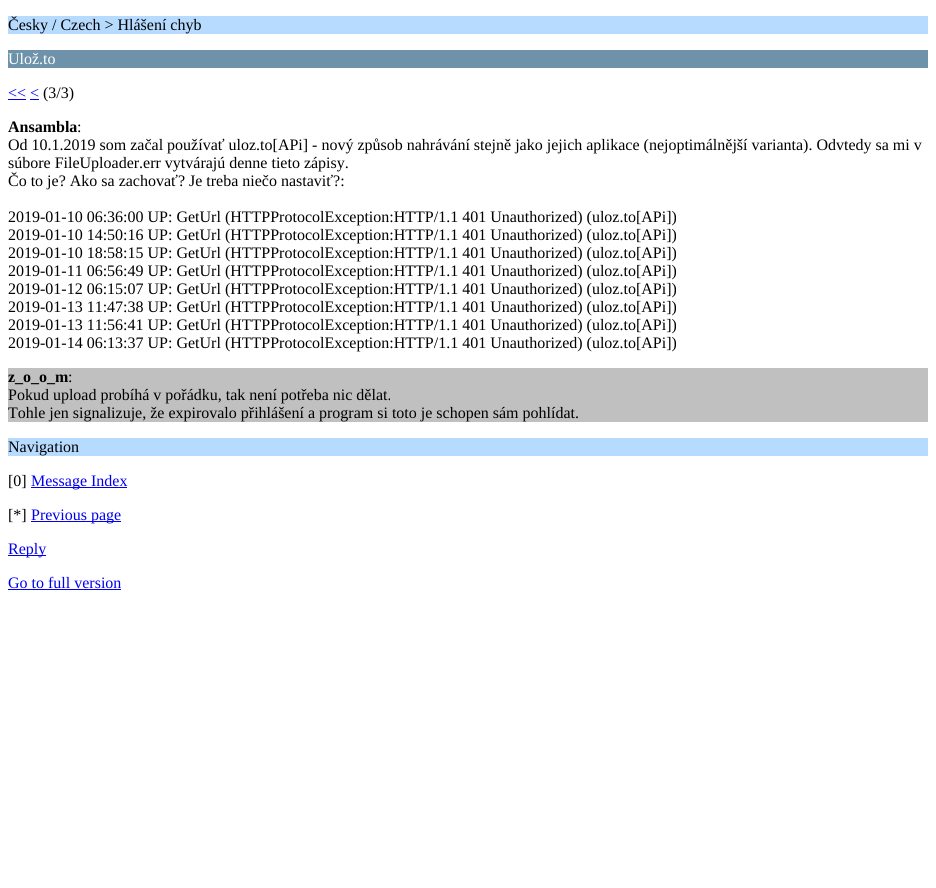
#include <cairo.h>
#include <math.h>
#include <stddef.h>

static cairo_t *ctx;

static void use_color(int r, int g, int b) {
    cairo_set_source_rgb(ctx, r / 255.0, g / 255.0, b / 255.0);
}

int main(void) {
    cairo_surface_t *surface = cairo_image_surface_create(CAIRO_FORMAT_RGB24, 936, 888);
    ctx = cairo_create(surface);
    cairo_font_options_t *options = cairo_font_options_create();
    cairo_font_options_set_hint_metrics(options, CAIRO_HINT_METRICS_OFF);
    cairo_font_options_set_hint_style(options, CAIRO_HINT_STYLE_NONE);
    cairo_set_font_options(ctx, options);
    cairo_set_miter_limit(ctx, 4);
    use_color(255, 255, 255);
    cairo_paint(ctx);
    use_color(182, 219, 255);
    cairo_rectangle(ctx, 8, 16, 920, 18);
    cairo_fill(ctx);
    cairo_select_font_face(ctx, "Liberation Serif", CAIRO_FONT_SLANT_NORMAL, CAIRO_FONT_WEIGHT_NORMAL);
    cairo_set_font_size(ctx, 16);
    use_color(0, 0, 0);
    cairo_move_to(ctx, 8, 30);
    cairo_show_text(ctx, "Česky / Czech > Hlášení chyb");
    use_color(109, 146, 170);
    cairo_rectangle(ctx, 8, 50, 920, 18);
    cairo_fill(ctx);
    use_color(255, 255, 255);
    cairo_move_to(ctx, 8, 64);
    cairo_show_text(ctx, "Ulož.to");
    use_color(0, 0, 238);
    cairo_move_to(ctx, 8, 98);
    cairo_show_text(ctx, "<< <");
    cairo_rectangle(ctx, 8, 99, 18, 1);
    cairo_fill(ctx);
    use_color(0, 0, 0);
    cairo_move_to(ctx, 43, 98);
    cairo_show_text(ctx, "(3/3)");
    use_color(0, 0, 238);
    cairo_rectangle(ctx, 30, 99, 9, 1);
    cairo_fill(ctx);
    cairo_select_font_face(ctx, "Liberation Serif", CAIRO_FONT_SLANT_NORMAL, CAIRO_FONT_WEIGHT_BOLD);
    use_color(0, 0, 0);
    cairo_move_to(ctx, 8, 132);
    cairo_show_text(ctx, "Ansambla");
    cairo_select_font_face(ctx, "Liberation Serif", CAIRO_FONT_SLANT_NORMAL, CAIRO_FONT_WEIGHT_NORMAL);
    cairo_move_to(ctx, 77, 132);
    cairo_show_text(ctx, ":");
    cairo_move_to(ctx, 8, 150);
    cairo_show_text(ctx, "Od 10.1.2019 som začal používať uloz.to[APi] - nový způsob nahrávání stejně jako jejich aplikace (nejoptimálnější varianta). Odvtedy sa mi v");
    cairo_move_to(ctx, 8, 168);
    cairo_show_text(ctx, "súbore FileUploader.err vytvárajú denne tieto zápisy.");
    cairo_move_to(ctx, 8, 186);
    cairo_show_text(ctx, "Čo to je? Ako sa zachovať? Je treba niečo nastaviť?:");
    cairo_move_to(ctx, 8, 222);
    cairo_show_text(ctx, "2019-01-10 06:36:00 UP: GetUrl (HTTPProtocolException:HTTP/1.1 401 Unauthorized) (uloz.to[APi])");
    cairo_move_to(ctx, 8, 240);
    cairo_show_text(ctx, "2019-01-10 14:50:16 UP: GetUrl (HTTPProtocolException:HTTP/1.1 401 Unauthorized) (uloz.to[APi])");
    cairo_move_to(ctx, 8, 258);
    cairo_show_text(ctx, "2019-01-10 18:58:15 UP: GetUrl (HTTPProtocolException:HTTP/1.1 401 Unauthorized) (uloz.to[APi])");
    cairo_move_to(ctx, 8, 276);
    cairo_show_text(ctx, "2019-01-11 06:56:49 UP: GetUrl (HTTPProtocolException:HTTP/1.1 401 Unauthorized) (uloz.to[APi])");
    cairo_move_to(ctx, 8, 294);
    cairo_show_text(ctx, "2019-01-12 06:15:07 UP: GetUrl (HTTPProtocolException:HTTP/1.1 401 Unauthorized) (uloz.to[APi])");
    cairo_move_to(ctx, 8, 312);
    cairo_show_text(ctx, "2019-01-13 11:47:38 UP: GetUrl (HTTPProtocolException:HTTP/1.1 401 Unauthorized) (uloz.to[APi])");
    cairo_move_to(ctx, 8, 330);
    cairo_show_text(ctx, "2019-01-13 11:56:41 UP: GetUrl (HTTPProtocolException:HTTP/1.1 401 Unauthorized) (uloz.to[APi])");
    cairo_move_to(ctx, 8, 348);
    cairo_show_text(ctx, "2019-01-14 06:13:37 UP: GetUrl (HTTPProtocolException:HTTP/1.1 401 Unauthorized) (uloz.to[APi])");
    use_color(192, 192, 192);
    cairo_rectangle(ctx, 8, 368, 920, 54);
    cairo_fill(ctx);
    cairo_select_font_face(ctx, "Liberation Serif", CAIRO_FONT_SLANT_NORMAL, CAIRO_FONT_WEIGHT_BOLD);
    use_color(0, 0, 0);
    cairo_move_to(ctx, 8, 382);
    cairo_show_text(ctx, "z_o_o_m");
    cairo_select_font_face(ctx, "Liberation Serif", CAIRO_FONT_SLANT_NORMAL, CAIRO_FONT_WEIGHT_NORMAL);
    cairo_move_to(ctx, 68, 382);
    cairo_show_text(ctx, ":");
    cairo_move_to(ctx, 8, 400);
    cairo_show_text(ctx, "Pokud upload probíhá v pořádku, tak není potřeba nic dělat.");
    cairo_move_to(ctx, 8, 418);
    cairo_show_text(ctx, "Tohle jen signalizuje, že expirovalo přihlášení a program si toto je schopen sám pohlídat.");
    use_color(182, 219, 255);
    cairo_rectangle(ctx, 8, 438, 920, 18);
    cairo_fill(ctx);
    use_color(0, 0, 0);
    cairo_move_to(ctx, 8, 452);
    cairo_show_text(ctx, "Navigation");
    cairo_move_to(ctx, 8, 486);
    cairo_show_text(ctx, "[0]");
    use_color(0, 0, 238);
    cairo_rectangle(ctx, 31, 487, 96, 1);
    cairo_fill(ctx);
    cairo_move_to(ctx, 31, 486);
    cairo_show_text(ctx, "Message Index");
    use_color(0, 0, 0);
    cairo_move_to(ctx, 8, 520);
    cairo_show_text(ctx, "[*]");
    use_color(0, 0, 238);
    cairo_rectangle(ctx, 31, 521, 90, 1);
    cairo_fill(ctx);
    cairo_move_to(ctx, 31, 520);
    cairo_show_text(ctx, "Previous page");
    cairo_rectangle(ctx, 8, 555, 38, 1);
    cairo_fill(ctx);
    cairo_move_to(ctx, 8, 554);
    cairo_show_text(ctx, "Reply");
    cairo_move_to(ctx, 8, 588);
    cairo_show_text(ctx, "Go to full version");
    cairo_rectangle(ctx, 8, 589, 113, 1);
    cairo_fill(ctx);
    cairo_surface_write_to_png(surface, "result.png");
    cairo_font_options_destroy(options);
    cairo_destroy(ctx);
    cairo_surface_destroy(surface);
    return 0;
}
